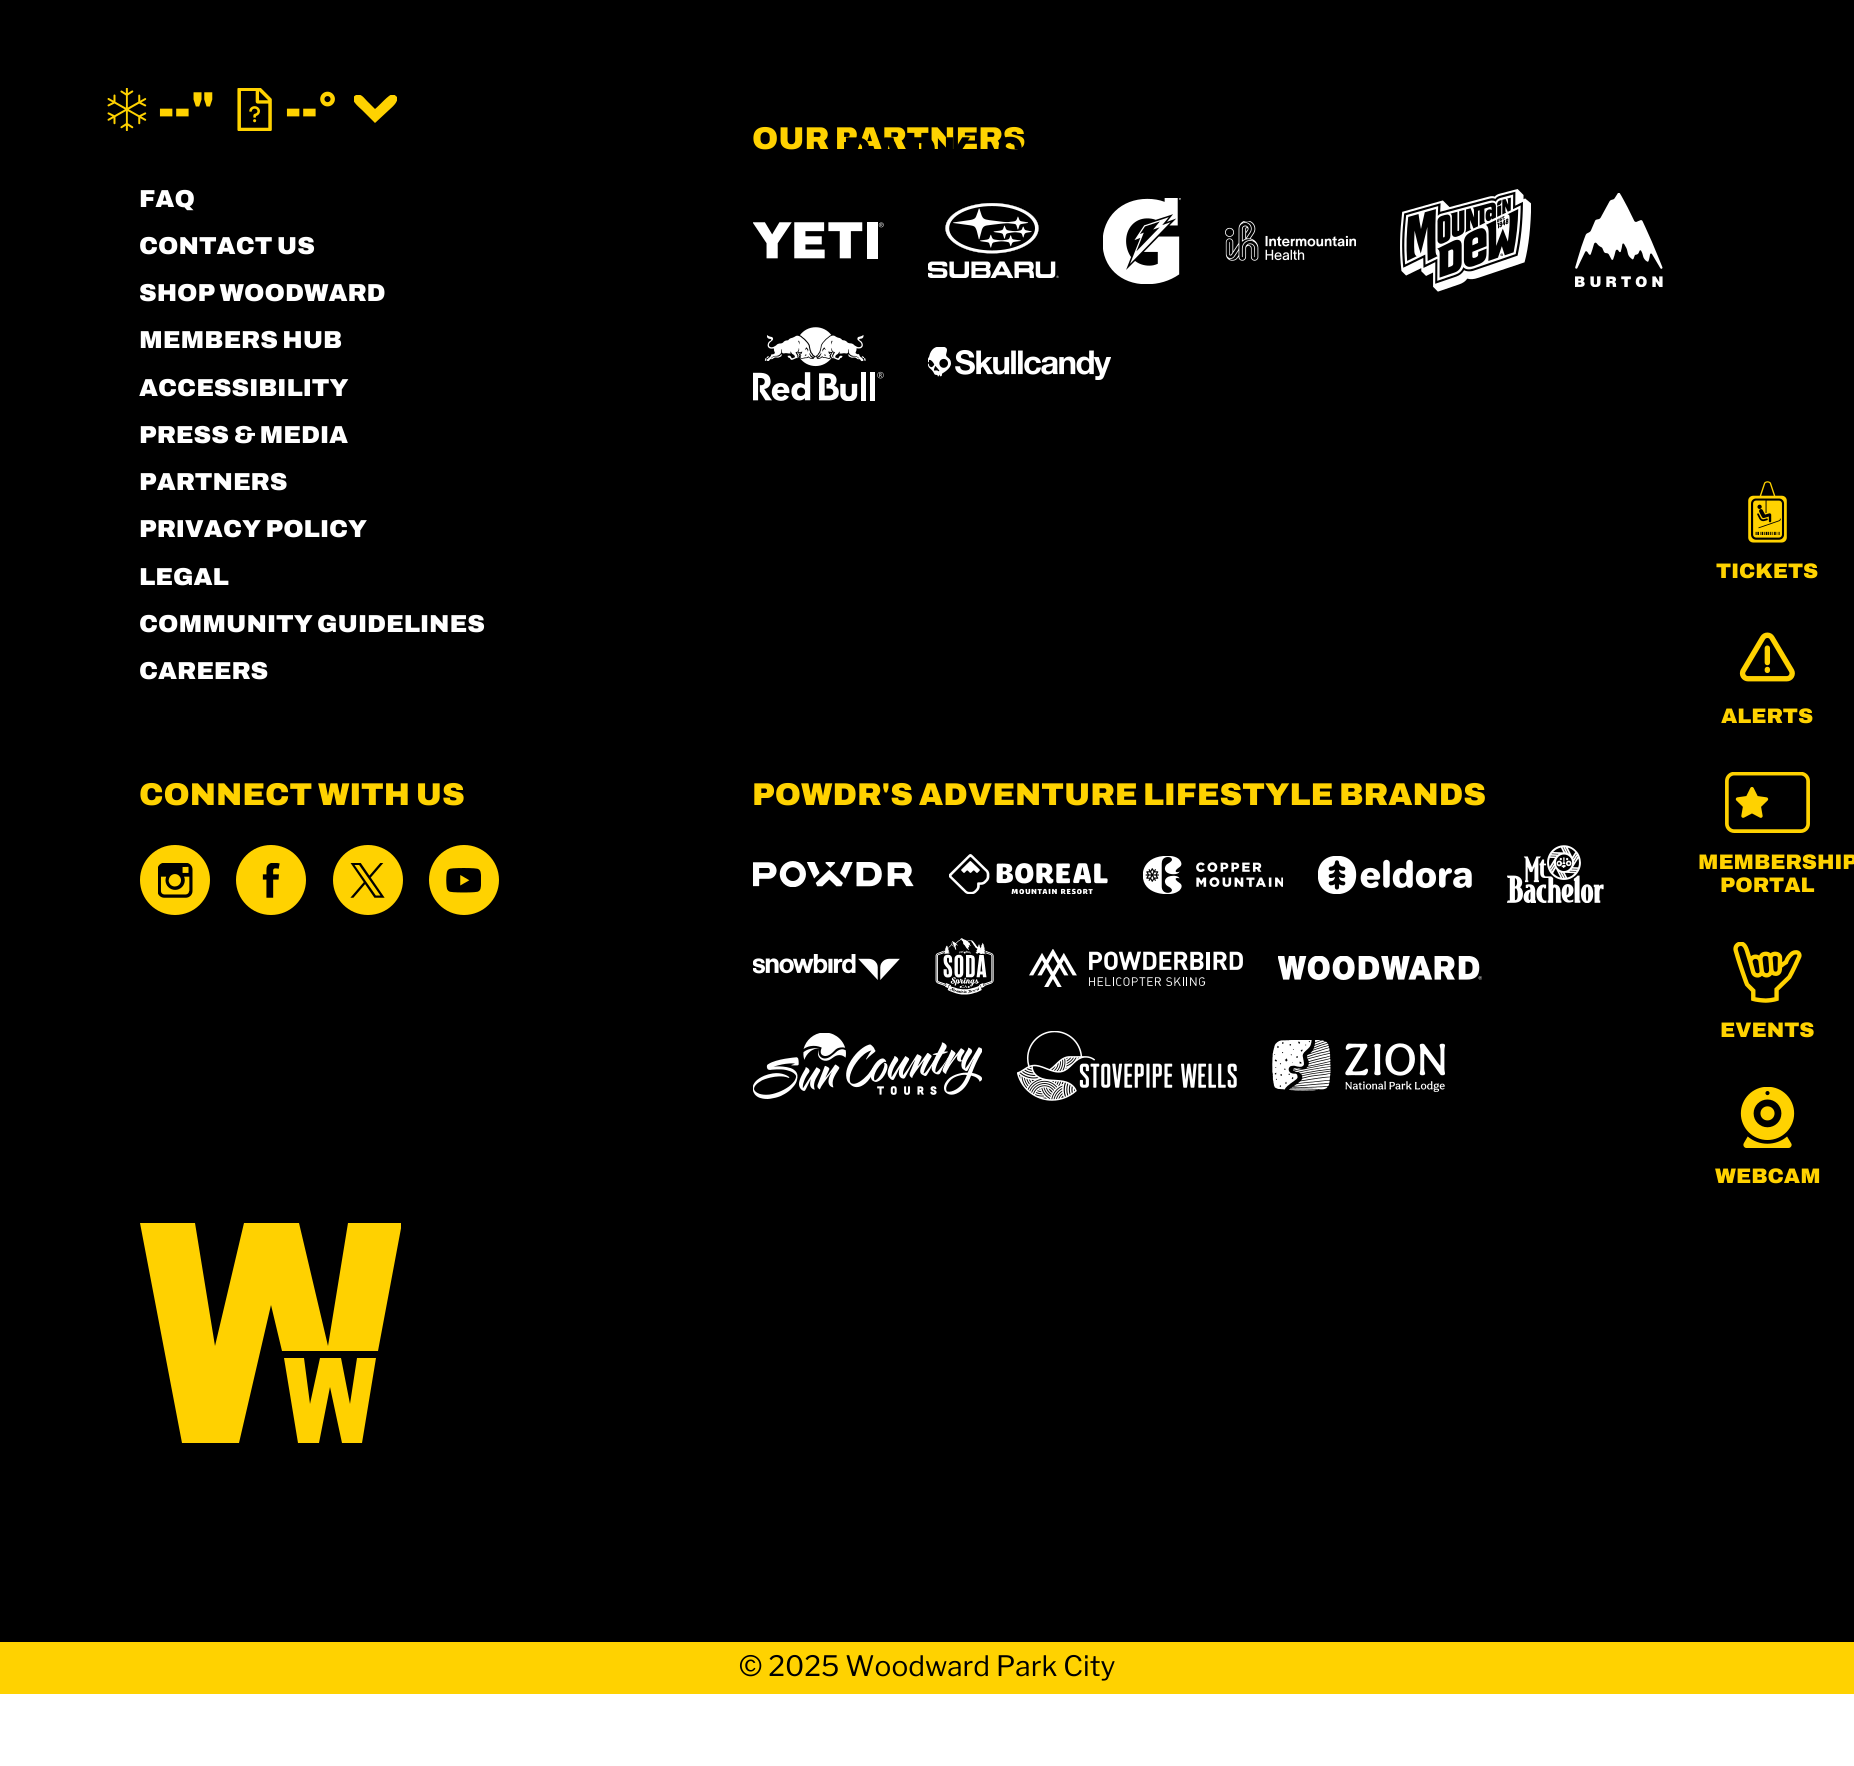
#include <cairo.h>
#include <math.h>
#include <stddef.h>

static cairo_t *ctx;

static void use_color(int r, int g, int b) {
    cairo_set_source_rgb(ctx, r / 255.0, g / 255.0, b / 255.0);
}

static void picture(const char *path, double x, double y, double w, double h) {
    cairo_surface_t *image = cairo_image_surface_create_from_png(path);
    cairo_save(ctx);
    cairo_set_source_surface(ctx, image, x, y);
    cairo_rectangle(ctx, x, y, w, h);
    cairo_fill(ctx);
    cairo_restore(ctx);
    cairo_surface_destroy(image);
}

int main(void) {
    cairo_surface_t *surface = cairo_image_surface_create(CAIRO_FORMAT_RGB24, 1854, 1766);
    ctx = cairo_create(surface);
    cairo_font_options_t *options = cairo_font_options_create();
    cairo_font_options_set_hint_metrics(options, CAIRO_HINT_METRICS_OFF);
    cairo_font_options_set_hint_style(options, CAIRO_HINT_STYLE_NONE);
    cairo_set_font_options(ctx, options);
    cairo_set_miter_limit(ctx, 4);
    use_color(255, 255, 255);
    cairo_paint(ctx);
    use_color(0, 0, 0);
    cairo_rectangle(ctx, 0, 0, 1854, 1642);
    cairo_fill(ctx);
    picture("img1.png", 107, 88, 40, 43);
    cairo_select_font_face(ctx, "Archivo Black", CAIRO_FONT_SLANT_NORMAL, CAIRO_FONT_WEIGHT_NORMAL);
    cairo_set_font_size(ctx, 49);
    use_color(255, 210, 0);
    cairo_move_to(ctx, 158, 126);
    cairo_show_text(ctx, "--\"");
    picture("img2.png", 237, 88, 35, 43);
    cairo_move_to(ctx, 285, 126);
    cairo_show_text(ctx, "--°");
    cairo_save(ctx);
    cairo_rectangle(ctx, 354, 95, 43, 29);
    cairo_clip(ctx);
    cairo_new_path(ctx);
    cairo_move_to(ctx, 375, 123);
    cairo_line_to(ctx, 362, 110);
    cairo_curve_to(ctx, 359, 107, 348, 99, 356, 95);
    cairo_curve_to(ctx, 361, 93, 364, 98, 367, 101);
    cairo_line_to(ctx, 375, 109);
    cairo_curve_to(ctx, 379, 106, 389, 94, 393, 94);
    cairo_curve_to(ctx, 395, 95, 396, 96, 397, 97);
    cairo_curve_to(ctx, 399, 102, 391, 108, 389, 110);
    cairo_close_path(ctx);
    cairo_fill(ctx);
    cairo_restore(ctx);
    cairo_set_font_size(ctx, 31.5);
    cairo_move_to(ctx, 752, 149);
    cairo_show_text(ctx, "OUR PARTNERS");
    picture("img3.png", 845, 136, 177, 14);
    picture("img4.png", 753, 222, 131, 37);
    picture("img5.png", 928, 203, 131, 75);
    picture("img6.png", 1103, 198, 78, 86);
    picture("img7.png", 1225, 221, 131, 40);
    picture("img8.png", 1400, 189, 131, 103);
    picture("img9.png", 1575, 193, 88, 94);
    picture("img10.png", 753, 327, 131, 74);
    picture("img11.png", 928, 347, 183, 33);
    cairo_set_font_size(ctx, 24.5);
    use_color(255, 255, 255);
    cairo_move_to(ctx, 139, 207);
    cairo_show_text(ctx, "FAQ");
    cairo_move_to(ctx, 139, 254);
    cairo_show_text(ctx, "CONTACT US");
    cairo_move_to(ctx, 139, 301);
    cairo_show_text(ctx, "SHOP WOODWARD");
    cairo_move_to(ctx, 139, 348);
    cairo_show_text(ctx, "MEMBERS HUB");
    cairo_move_to(ctx, 139, 396);
    cairo_show_text(ctx, "ACCESSIBILITY");
    cairo_move_to(ctx, 139, 443);
    cairo_show_text(ctx, "PRESS & MEDIA");
    cairo_move_to(ctx, 139, 490);
    cairo_show_text(ctx, "PARTNERS");
    cairo_move_to(ctx, 139, 537);
    cairo_show_text(ctx, "PRIVACY POLICY");
    cairo_move_to(ctx, 139, 585);
    cairo_show_text(ctx, "LEGAL");
    cairo_move_to(ctx, 139, 632);
    cairo_show_text(ctx, "COMMUNITY GUIDELINES");
    cairo_move_to(ctx, 139, 679);
    cairo_show_text(ctx, "CAREERS");
    cairo_set_font_size(ctx, 31.5);
    use_color(255, 210, 0);
    cairo_move_to(ctx, 139, 805);
    cairo_show_text(ctx, "CONNECT WITH US");
    cairo_new_path(ctx);
    cairo_arc(ctx, 175, 880, 35, 0, 2 * M_PI);
    cairo_fill(ctx);
    picture("img12.png", 158, 863, 35, 35);
    cairo_arc(ctx, 271, 880, 35, 0, 2 * M_PI);
    cairo_fill(ctx);
    picture("img13.png", 262, 863, 18, 35);
    cairo_arc(ctx, 368, 880, 35, 0, 2 * M_PI);
    cairo_fill(ctx);
    picture("img14.png", 350, 863, 35, 35);
    cairo_arc(ctx, 464, 880, 35, 0, 2 * M_PI);
    cairo_fill(ctx);
    picture("img15.png", 446, 868, 35, 25);
    cairo_move_to(ctx, 752, 805);
    cairo_show_text(ctx, "POWDR'S ADVENTURE LIFESTYLE BRANDS");
    picture("img16.png", 753, 861, 161, 26);
    picture("img17.png", 949, 854, 159, 40);
    picture("img18.png", 1143, 856, 140, 38);
    picture("img19.png", 1318, 856, 154, 38);
    picture("img20.png", 1507, 845, 97, 58);
    picture("img21.png", 753, 954, 147, 26);
    picture("img22.png", 935, 938, 59, 57);
    picture("img23.png", 1029, 949, 214, 38);
    picture("img24.png", 1278, 956, 204, 24);
    picture("img25.png", 753, 1033, 229, 66);
    picture("img26.png", 1017, 1031, 220, 70);
    picture("img27.png", 1272, 1040, 173, 52);
    cairo_save(ctx);
    cairo_rectangle(ctx, 140, 1223, 261, 221);
    cairo_clip(ctx);
    use_color(255, 209, 0);
    cairo_new_path(ctx);
    cairo_move_to(ctx, 348, 1223);
    cairo_line_to(ctx, 328, 1346);
    cairo_line_to(ctx, 299, 1223);
    cairo_line_to(ctx, 244, 1223);
    cairo_line_to(ctx, 215, 1346);
    cairo_line_to(ctx, 195, 1223);
    cairo_line_to(ctx, 140, 1223);
    cairo_line_to(ctx, 182, 1443);
    cairo_line_to(ctx, 239, 1443);
    cairo_line_to(ctx, 271, 1305);
    cairo_line_to(ctx, 282, 1351);
    cairo_line_to(ctx, 378, 1351);
    cairo_line_to(ctx, 402, 1223);
    cairo_close_path(ctx);
    cairo_fill(ctx);
    cairo_restore(ctx);
    use_color(255, 209, 0);
    cairo_new_path(ctx);
    cairo_move_to(ctx, 350, 1404);
    cairo_line_to(ctx, 341, 1358);
    cairo_line_to(ctx, 320, 1358);
    cairo_line_to(ctx, 310, 1404);
    cairo_line_to(ctx, 304, 1358);
    cairo_line_to(ctx, 284, 1358);
    cairo_line_to(ctx, 298, 1443);
    cairo_line_to(ctx, 319, 1443);
    cairo_line_to(ctx, 330, 1387);
    cairo_line_to(ctx, 342, 1443);
    cairo_line_to(ctx, 362, 1443);
    cairo_line_to(ctx, 376, 1358);
    cairo_line_to(ctx, 357, 1358);
    cairo_close_path(ctx);
    cairo_fill(ctx);
    use_color(255, 210, 0);
    cairo_rectangle(ctx, 0, 1642, 1854, 52);
    cairo_fill(ctx);
    cairo_select_font_face(ctx, "Libre Franklin", CAIRO_FONT_SLANT_NORMAL, CAIRO_FONT_WEIGHT_NORMAL);
    cairo_set_font_size(ctx, 28);
    use_color(0, 0, 0);
    cairo_move_to(ctx, 739, 1676);
    cairo_show_text(ctx, "© 2025 Woodward Park City");
    picture("img28.png", 1748, 481, 39, 62);
    cairo_select_font_face(ctx, "Archivo Black", CAIRO_FONT_SLANT_NORMAL, CAIRO_FONT_WEIGHT_NORMAL);
    cairo_set_font_size(ctx, 21);
    use_color(255, 210, 0);
    cairo_move_to(ctx, 1716, 578);
    cairo_show_text(ctx, "TICKETS");
    picture("img29.png", 1739, 632, 56, 50);
    cairo_move_to(ctx, 1721, 723);
    cairo_show_text(ctx, "ALERTS");
    picture("img30.png", 1725, 772, 85, 61);
    cairo_move_to(ctx, 1698, 869);
    cairo_show_text(ctx, "MEMBERSHIP");
    cairo_move_to(ctx, 1720, 892);
    cairo_show_text(ctx, "PORTAL");
    picture("img31.png", 1733, 942, 69, 61);
    cairo_move_to(ctx, 1720, 1037);
    cairo_show_text(ctx, "EVENTS");
    picture("img32.png", 1740, 1087, 55, 61);
    cairo_move_to(ctx, 1715, 1183);
    cairo_show_text(ctx, "WEBCAM");
    cairo_surface_write_to_png(surface, "result.png");
    cairo_font_options_destroy(options);
    cairo_destroy(ctx);
    cairo_surface_destroy(surface);
    return 0;
}
